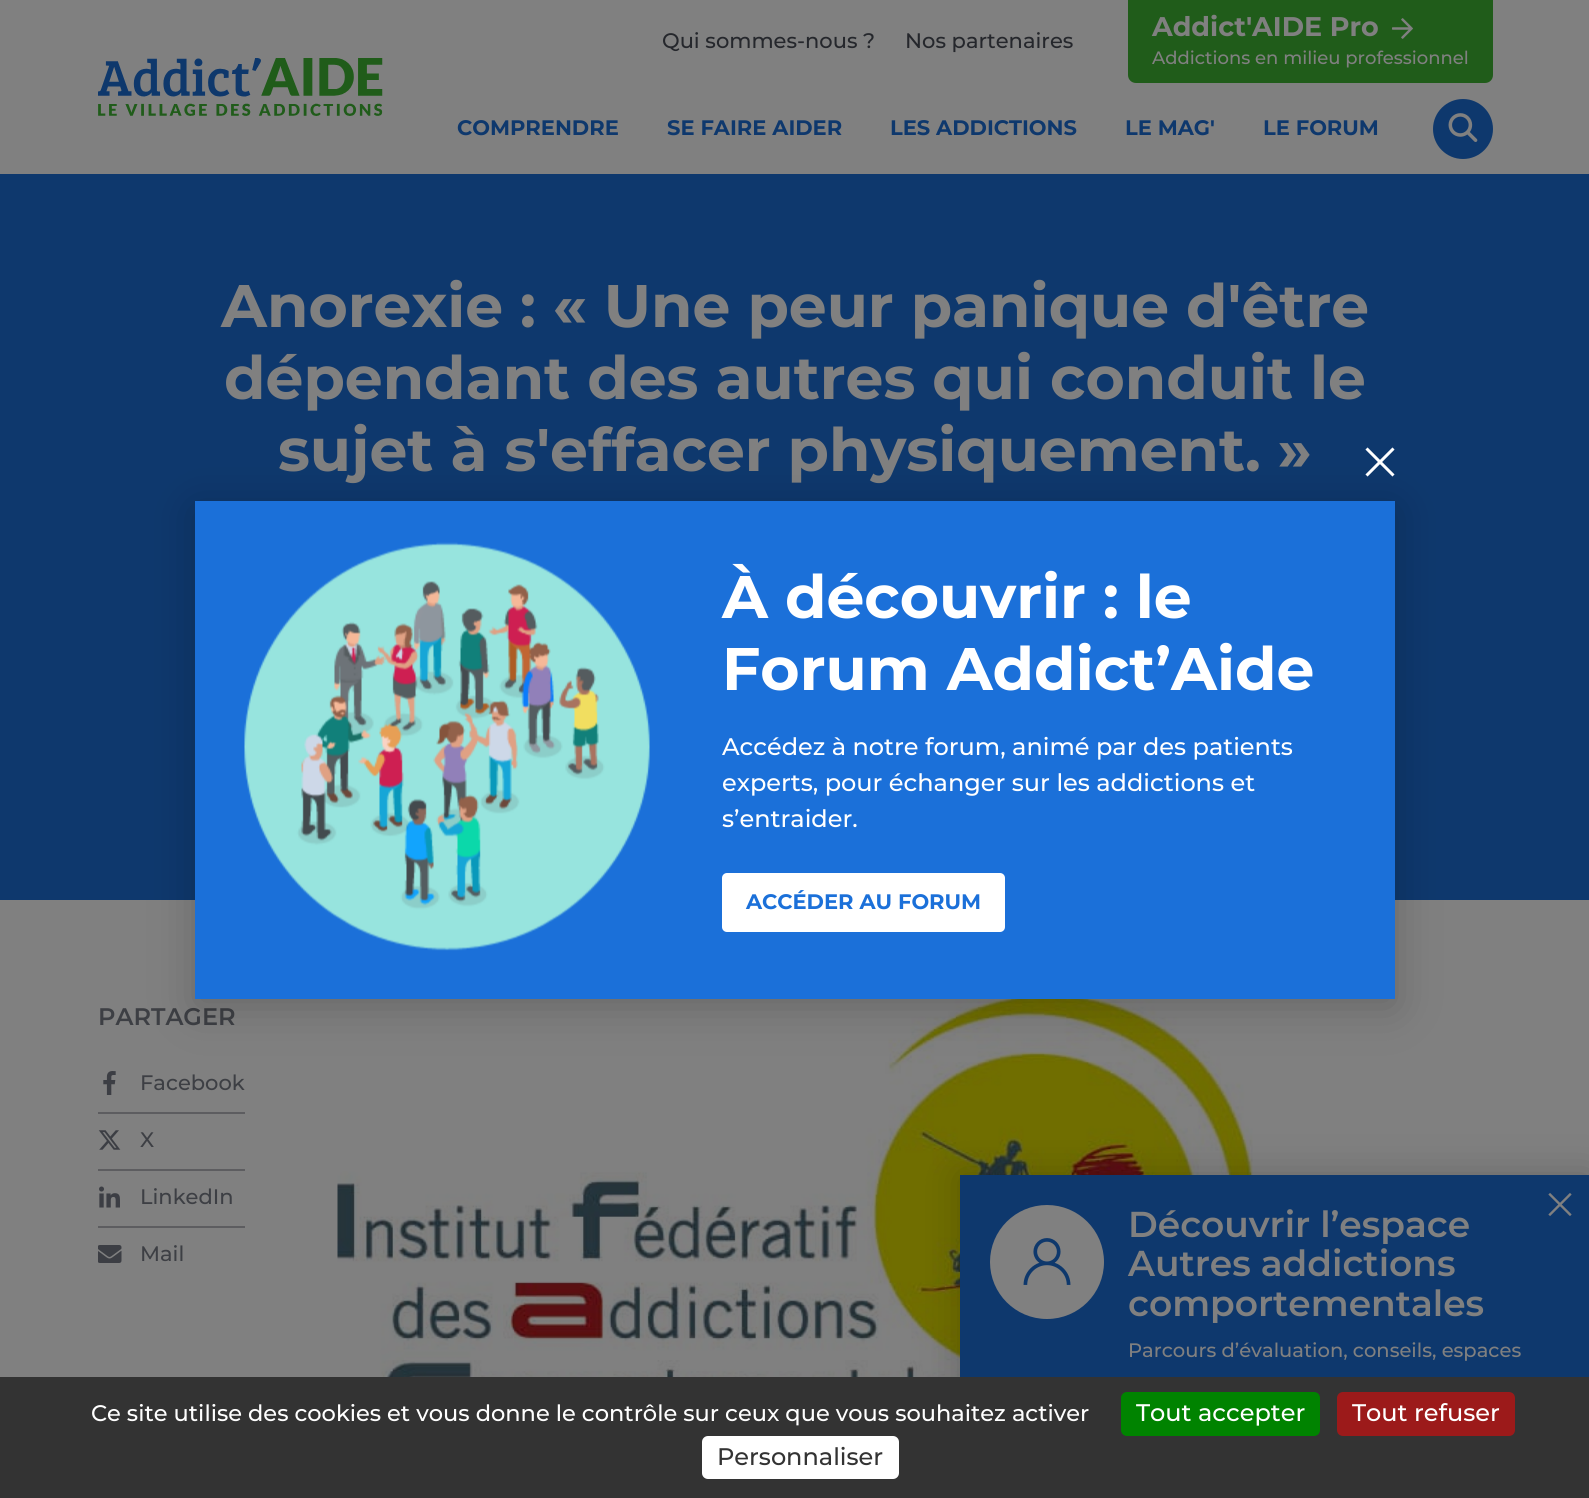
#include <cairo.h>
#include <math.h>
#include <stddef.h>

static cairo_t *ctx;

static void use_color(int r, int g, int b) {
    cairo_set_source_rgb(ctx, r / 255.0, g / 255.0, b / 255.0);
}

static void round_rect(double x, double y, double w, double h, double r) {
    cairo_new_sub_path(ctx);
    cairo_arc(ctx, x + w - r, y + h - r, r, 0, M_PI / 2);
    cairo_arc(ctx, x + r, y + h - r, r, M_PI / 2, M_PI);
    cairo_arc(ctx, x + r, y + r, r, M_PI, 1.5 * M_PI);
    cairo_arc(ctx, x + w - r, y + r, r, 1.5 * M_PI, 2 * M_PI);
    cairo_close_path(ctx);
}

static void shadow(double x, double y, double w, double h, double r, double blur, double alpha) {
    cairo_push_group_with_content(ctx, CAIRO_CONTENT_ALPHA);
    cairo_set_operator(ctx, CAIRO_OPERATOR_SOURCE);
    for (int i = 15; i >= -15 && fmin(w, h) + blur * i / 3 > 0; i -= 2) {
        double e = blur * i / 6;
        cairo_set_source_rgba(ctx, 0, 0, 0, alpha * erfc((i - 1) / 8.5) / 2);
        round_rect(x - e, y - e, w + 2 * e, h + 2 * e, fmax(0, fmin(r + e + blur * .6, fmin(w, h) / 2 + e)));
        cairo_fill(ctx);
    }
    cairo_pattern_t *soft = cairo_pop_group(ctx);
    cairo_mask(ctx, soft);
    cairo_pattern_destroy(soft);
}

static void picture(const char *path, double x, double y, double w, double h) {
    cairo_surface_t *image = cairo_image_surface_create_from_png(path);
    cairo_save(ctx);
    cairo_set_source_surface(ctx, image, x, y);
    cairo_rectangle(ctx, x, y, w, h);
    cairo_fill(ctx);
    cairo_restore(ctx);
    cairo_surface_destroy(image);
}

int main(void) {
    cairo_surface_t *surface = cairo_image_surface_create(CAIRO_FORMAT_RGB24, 1589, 1498);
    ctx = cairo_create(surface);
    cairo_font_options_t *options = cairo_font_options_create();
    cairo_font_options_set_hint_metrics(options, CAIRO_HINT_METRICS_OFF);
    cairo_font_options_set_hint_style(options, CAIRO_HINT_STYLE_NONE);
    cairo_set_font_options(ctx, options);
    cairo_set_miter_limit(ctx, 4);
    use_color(128, 128, 128);
    cairo_paint(ctx);
    cairo_select_font_face(ctx, "Montserrat Medium", CAIRO_FONT_SLANT_NORMAL, CAIRO_FONT_WEIGHT_NORMAL);
    cairo_set_font_size(ctx, 21);
    use_color(37, 39, 44);
    cairo_move_to(ctx, 662, 48);
    cairo_show_text(ctx, "Qui sommes-nous ?");
    cairo_move_to(ctx, 905, 48);
    cairo_show_text(ctx, "Nos partenaires");
    use_color(32, 92, 26);
    cairo_new_path(ctx);
    cairo_move_to(ctx, 1128, 0);
    cairo_line_to(ctx, 1493, 0);
    cairo_line_to(ctx, 1493, 75);
    cairo_curve_to(ctx, 1493, 79.5, 1489.5, 83, 1485, 83);
    cairo_line_to(ctx, 1136, 83);
    cairo_curve_to(ctx, 1131.5, 83, 1128, 79.5, 1128, 75);
    cairo_close_path(ctx);
    cairo_fill(ctx);
    cairo_select_font_face(ctx, "Montserrat", CAIRO_FONT_SLANT_NORMAL, CAIRO_FONT_WEIGHT_BOLD);
    cairo_set_font_size(ctx, 27);
    use_color(128, 128, 128);
    cairo_move_to(ctx, 1152, 36);
    cairo_show_text(ctx, "Addict'AIDE Pro");
    picture("img1.png", 1392, 18, 21, 21);
    cairo_select_font_face(ctx, "Montserrat Medium", CAIRO_FONT_SLANT_NORMAL, CAIRO_FONT_WEIGHT_NORMAL);
    cairo_set_font_size(ctx, 18);
    cairo_move_to(ctx, 1152, 64);
    cairo_show_text(ctx, "Addictions en milieu professionnel");
    picture("img2.png", 98, 58, 285, 58);
    cairo_select_font_face(ctx, "Montserrat", CAIRO_FONT_SLANT_NORMAL, CAIRO_FONT_WEIGHT_BOLD);
    cairo_set_font_size(ctx, 21);
    use_color(14, 56, 109);
    cairo_move_to(ctx, 457, 135);
    cairo_show_text(ctx, "COMPRENDRE");
    cairo_move_to(ctx, 667, 135);
    cairo_show_text(ctx, "SE FAIRE AIDER");
    cairo_move_to(ctx, 890, 135);
    cairo_show_text(ctx, "LES ADDICTIONS");
    cairo_move_to(ctx, 1125, 135);
    cairo_show_text(ctx, "LE MAG'");
    cairo_move_to(ctx, 1263, 135);
    cairo_show_text(ctx, "LE FORUM");
    cairo_new_path(ctx);
    cairo_arc(ctx, 1463, 129, 30, 0, 2 * M_PI);
    cairo_fill(ctx);
    picture("img3.png", 1448, 113, 30, 29);
    cairo_rectangle(ctx, 0, 174, 1589, 726);
    cairo_fill(ctx);
    cairo_set_font_size(ctx, 60);
    use_color(128, 128, 128);
    cairo_move_to(ctx, 221, 327);
    cairo_show_text(ctx, "Anorexie : « Une peur panique d'être");
    cairo_move_to(ctx, 224, 399);
    cairo_show_text(ctx, "dépendant des autres qui conduit le");
    cairo_move_to(ctx, 278, 471);
    cairo_show_text(ctx, "sujet à s'effacer physiquement. »");
    cairo_select_font_face(ctx, "Montserrat SemiBold", CAIRO_FONT_SLANT_NORMAL, CAIRO_FONT_WEIGHT_NORMAL);
    cairo_set_font_size(ctx, 24);
    use_color(61, 63, 68);
    cairo_move_to(ctx, 98, 1025);
    cairo_show_text(ctx, "PARTAGER");
    picture("img4.png", 103, 1071, 13, 24);
    cairo_select_font_face(ctx, "Montserrat Medium", CAIRO_FONT_SLANT_NORMAL, CAIRO_FONT_WEIGHT_NORMAL);
    cairo_set_font_size(ctx, 21);
    cairo_move_to(ctx, 140, 1090);
    cairo_show_text(ctx, "Facebook");
    use_color(93, 93, 96);
    cairo_rectangle(ctx, 98, 1112, 147, 2);
    cairo_fill(ctx);
    picture("img5.png", 98, 1130, 23, 20);
    use_color(61, 63, 68);
    cairo_move_to(ctx, 140, 1147);
    cairo_show_text(ctx, "X");
    use_color(93, 93, 96);
    cairo_rectangle(ctx, 98, 1169, 147, 2);
    cairo_fill(ctx);
    picture("img6.png", 99, 1186, 21, 22);
    use_color(61, 63, 68);
    cairo_move_to(ctx, 140, 1204);
    cairo_show_text(ctx, "LinkedIn");
    use_color(93, 93, 96);
    cairo_rectangle(ctx, 98, 1226, 147, 2);
    cairo_fill(ctx);
    picture("img7.png", 98, 1245, 24, 18);
    use_color(61, 63, 68);
    cairo_move_to(ctx, 140, 1261);
    cairo_show_text(ctx, "Mail");
    picture("img8.png", 337, 999, 916, 378);
    use_color(0, 0, 0);
    shadow(195, 509, 1200, 498, 0, 22.5, 0.2);
    picture("img9.png", 1365, 447, 30, 30);
    use_color(27, 112, 217);
    cairo_rectangle(ctx, 195, 501, 1200, 498);
    cairo_fill(ctx);
    picture("img10.png", 244, 542, 406, 409);
    cairo_select_font_face(ctx, "Montserrat", CAIRO_FONT_SLANT_NORMAL, CAIRO_FONT_WEIGHT_BOLD);
    cairo_set_font_size(ctx, 60);
    use_color(255, 255, 255);
    cairo_move_to(ctx, 722, 618);
    cairo_show_text(ctx, "À découvrir : le");
    cairo_move_to(ctx, 722, 690);
    cairo_show_text(ctx, "Forum Addict’Aide");
    cairo_select_font_face(ctx, "Montserrat Medium", CAIRO_FONT_SLANT_NORMAL, CAIRO_FONT_WEIGHT_NORMAL);
    cairo_set_font_size(ctx, 24);
    cairo_move_to(ctx, 722, 755);
    cairo_show_text(ctx, "Accédez à notre forum, animé par des patients");
    cairo_move_to(ctx, 722, 791);
    cairo_show_text(ctx, "experts, pour échanger sur les addictions et");
    cairo_move_to(ctx, 722, 827);
    cairo_show_text(ctx, "s’entraider.");
    round_rect(722, 873, 283, 59, 5);
    cairo_fill(ctx);
    cairo_select_font_face(ctx, "Montserrat", CAIRO_FONT_SLANT_NORMAL, CAIRO_FONT_WEIGHT_BOLD);
    cairo_set_font_size(ctx, 21);
    use_color(27, 112, 217);
    cairo_move_to(ctx, 746, 909);
    cairo_show_text(ctx, "ACCÉDER AU FORUM");
    use_color(0, 0, 0);
    shadow(960, 1175, 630, 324, 0, 19, 0.2);
    use_color(14, 56, 109);
    cairo_rectangle(ctx, 960, 1175, 629, 202);
    cairo_fill(ctx);
    picture("img11.png", 1548, 1193, 24, 23);
    use_color(128, 128, 128);
    cairo_arc(ctx, 1047, 1262, 57, 0, 2 * M_PI);
    cairo_fill(ctx);
    picture("img12.png", 1023, 1238, 48, 47);
    cairo_select_font_face(ctx, "Montserrat SemiBold", CAIRO_FONT_SLANT_NORMAL, CAIRO_FONT_WEIGHT_NORMAL);
    cairo_set_font_size(ctx, 36);
    cairo_move_to(ctx, 1128, 1237);
    cairo_show_text(ctx, "Découvrir l’espace");
    cairo_move_to(ctx, 1128, 1276);
    cairo_show_text(ctx, "Autres addictions");
    cairo_move_to(ctx, 1128, 1316);
    cairo_show_text(ctx, "comportementales");
    cairo_select_font_face(ctx, "Montserrat Medium", CAIRO_FONT_SLANT_NORMAL, CAIRO_FONT_WEIGHT_NORMAL);
    cairo_set_font_size(ctx, 19.5);
    cairo_move_to(ctx, 1128, 1357);
    cairo_show_text(ctx, "Parcours d’évaluation, conseils, espaces");
    use_color(51, 51, 51);
    cairo_rectangle(ctx, 0, 1377, 1589, 121);
    cairo_fill(ctx);
    cairo_set_font_size(ctx, 22.5);
    use_color(255, 255, 255);
    cairo_move_to(ctx, 91, 1421);
    cairo_show_text(ctx, "Ce site utilise des cookies et vous donne le contrôle sur ceux que vous souhaitez activer");
    use_color(0, 131, 0);
    round_rect(1121, 1392, 199, 44, 6);
    cairo_fill(ctx);
    cairo_set_font_size(ctx, 24);
    use_color(255, 255, 255);
    cairo_move_to(ctx, 1136, 1421);
    cairo_show_text(ctx, "Tout accepter");
    use_color(156, 26, 26);
    round_rect(1337, 1392, 178, 44, 6);
    cairo_fill(ctx);
    use_color(255, 255, 255);
    cairo_move_to(ctx, 1352, 1421);
    cairo_show_text(ctx, "Tout refuser");
    round_rect(702, 1436, 197, 43, 6);
    cairo_fill(ctx);
    use_color(51, 51, 51);
    cairo_move_to(ctx, 717, 1465);
    cairo_show_text(ctx, "Personnaliser");
    cairo_surface_write_to_png(surface, "result.png");
    cairo_font_options_destroy(options);
    cairo_destroy(ctx);
    cairo_surface_destroy(surface);
    return 0;
}
